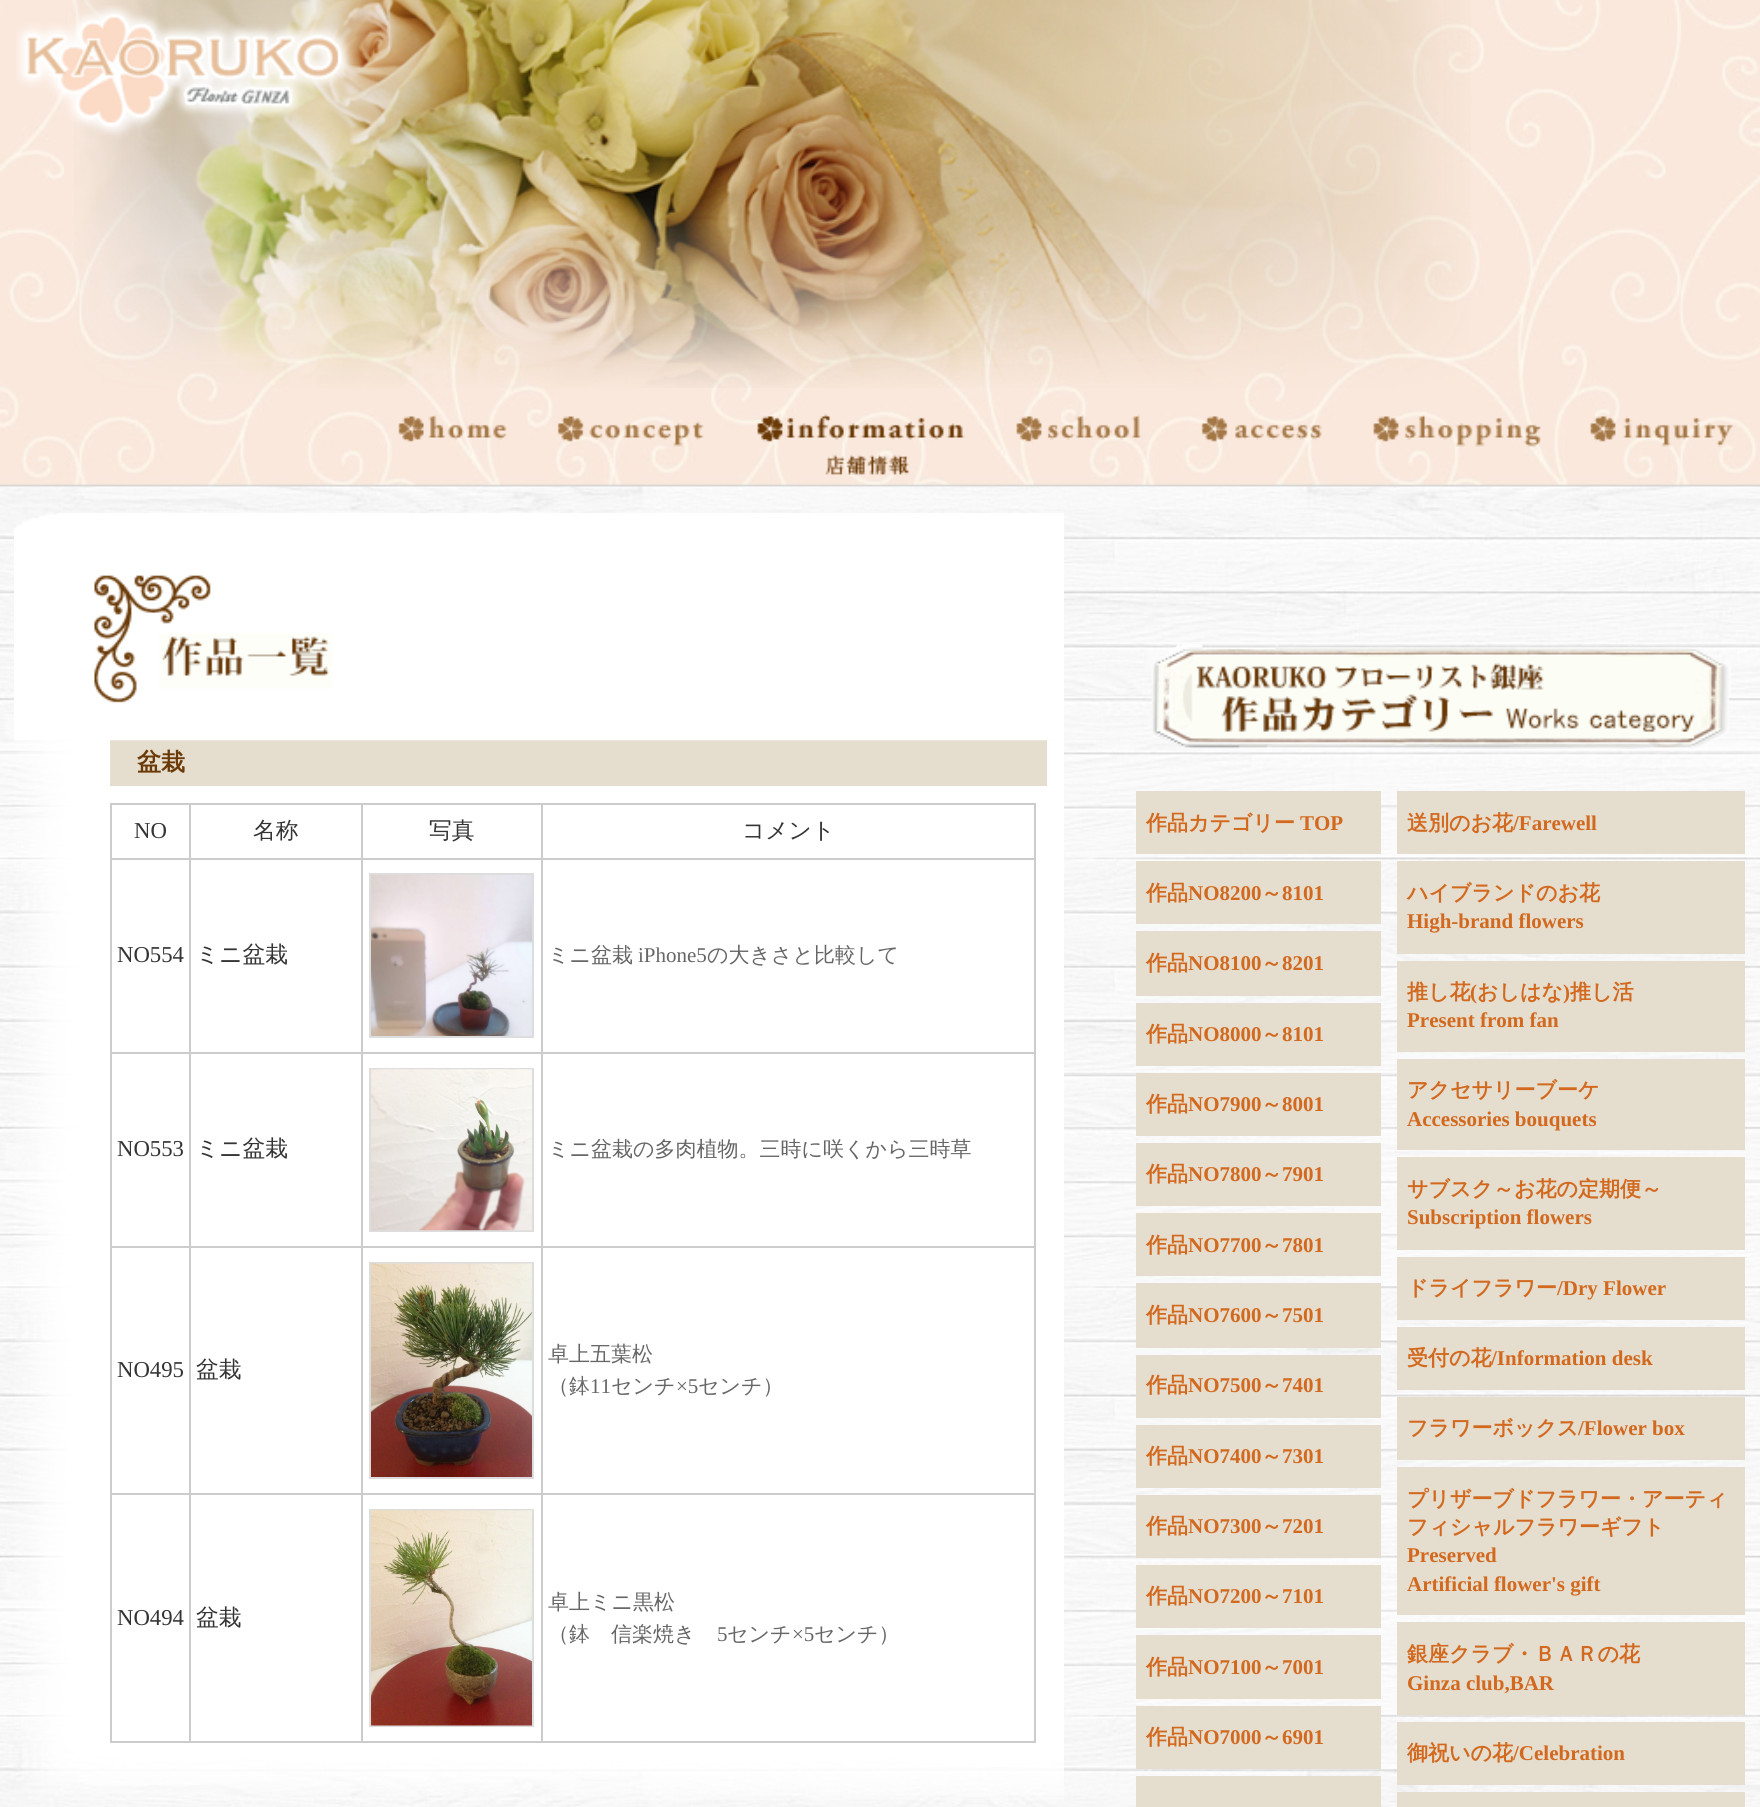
#include <cairo.h>
#include <math.h>
#include <stddef.h>

static cairo_t *ctx;

static void use_color(int r, int g, int b) {
    cairo_set_source_rgb(ctx, r / 255.0, g / 255.0, b / 255.0);
}

static void picture(const char *path, double x, double y, double w, double h) {
    cairo_surface_t *image = cairo_image_surface_create_from_png(path);
    cairo_save(ctx);
    cairo_set_source_surface(ctx, image, x, y);
    cairo_rectangle(ctx, x, y, w, h);
    cairo_fill(ctx);
    cairo_restore(ctx);
    cairo_surface_destroy(image);
}

int main(void) {
    cairo_surface_t *surface = cairo_image_surface_create(CAIRO_FORMAT_RGB24, 1760, 1807);
    ctx = cairo_create(surface);
    cairo_font_options_t *options = cairo_font_options_create();
    cairo_font_options_set_hint_metrics(options, CAIRO_HINT_METRICS_OFF);
    cairo_font_options_set_hint_style(options, CAIRO_HINT_STYLE_NONE);
    cairo_set_font_options(ctx, options);
    cairo_set_miter_limit(ctx, 4);
    use_color(255, 255, 255);
    cairo_paint(ctx);
    picture("img1.png", 0, 486, 1760, 1321);
    picture("img2.png", 0, 0, 1760, 487);
    picture("img3.png", 74, 0, 1397, 388);
    picture("img4.png", 16, 5, 338, 130);
    picture("img5.png", 398, 414, 109, 28);
    picture("img6.png", 557, 416, 147, 31);
    picture("img7.png", 757, 414, 208, 61);
    picture("img8.png", 1016, 414, 126, 28);
    picture("img9.png", 1201, 416, 121, 26);
    picture("img10.png", 1373, 414, 168, 33);
    picture("img11.png", 1590, 416, 143, 31);
    picture("img13.png", 15, 740, 1049, 1003);
    use_color(229, 221, 206);
    cairo_rectangle(ctx, 110, 740, 937, 46);
    cairo_fill(ctx);
    picture("img12.png", 14, 513, 1050, 228);
    cairo_select_font_face(ctx, "WenQuanYi Zen Hei", CAIRO_FONT_SLANT_NORMAL, CAIRO_FONT_WEIGHT_BOLD);
    cairo_set_font_size(ctx, 24);
    use_color(106, 57, 6);
    cairo_move_to(ctx, 137, 770);
    cairo_show_text(ctx, "盆栽");
    use_color(204, 204, 204);
    cairo_rectangle(ctx, 110, 803, 926, 2);
    cairo_fill(ctx);
    cairo_rectangle(ctx, 1034, 803, 2, 940);
    cairo_fill(ctx);
    cairo_rectangle(ctx, 110, 1741, 926, 2);
    cairo_fill(ctx);
    cairo_rectangle(ctx, 110, 803, 2, 940);
    cairo_fill(ctx);
    cairo_select_font_face(ctx, "Liberation Serif", CAIRO_FONT_SLANT_NORMAL, CAIRO_FONT_WEIGHT_NORMAL);
    cairo_set_font_size(ctx, 22.75);
    use_color(52, 52, 52);
    cairo_move_to(ctx, 134, 838);
    cairo_show_text(ctx, "NO");
    use_color(204, 204, 204);
    cairo_rectangle(ctx, 541, 858, 495, 2);
    cairo_fill(ctx);
    cairo_rectangle(ctx, 541, 1052, 495, 2);
    cairo_fill(ctx);
    cairo_rectangle(ctx, 541, 1246, 495, 2);
    cairo_fill(ctx);
    cairo_rectangle(ctx, 541, 1493, 495, 2);
    cairo_fill(ctx);
    cairo_rectangle(ctx, 541, 1493, 2, 250);
    cairo_fill(ctx);
    cairo_rectangle(ctx, 361, 1493, 182, 2);
    cairo_fill(ctx);
    cairo_rectangle(ctx, 541, 1246, 2, 249);
    cairo_fill(ctx);
    cairo_rectangle(ctx, 361, 1246, 182, 2);
    cairo_fill(ctx);
    cairo_rectangle(ctx, 541, 1052, 2, 196);
    cairo_fill(ctx);
    cairo_rectangle(ctx, 361, 1052, 182, 2);
    cairo_fill(ctx);
    cairo_rectangle(ctx, 541, 858, 2, 196);
    cairo_fill(ctx);
    cairo_rectangle(ctx, 361, 858, 182, 2);
    cairo_fill(ctx);
    cairo_rectangle(ctx, 361, 1493, 2, 250);
    cairo_fill(ctx);
    cairo_rectangle(ctx, 189, 1493, 173, 2);
    cairo_fill(ctx);
    cairo_rectangle(ctx, 361, 1246, 2, 249);
    cairo_fill(ctx);
    cairo_rectangle(ctx, 189, 1246, 173, 2);
    cairo_fill(ctx);
    cairo_rectangle(ctx, 361, 1052, 2, 196);
    cairo_fill(ctx);
    cairo_rectangle(ctx, 189, 1052, 173, 2);
    cairo_fill(ctx);
    cairo_rectangle(ctx, 361, 858, 2, 196);
    cairo_fill(ctx);
    cairo_rectangle(ctx, 189, 858, 173, 2);
    cairo_fill(ctx);
    cairo_rectangle(ctx, 189, 1493, 2, 250);
    cairo_fill(ctx);
    cairo_rectangle(ctx, 110, 1493, 81, 2);
    cairo_fill(ctx);
    cairo_rectangle(ctx, 189, 1246, 2, 249);
    cairo_fill(ctx);
    cairo_rectangle(ctx, 110, 1246, 81, 2);
    cairo_fill(ctx);
    cairo_rectangle(ctx, 189, 1052, 2, 196);
    cairo_fill(ctx);
    cairo_rectangle(ctx, 110, 1052, 81, 2);
    cairo_fill(ctx);
    cairo_rectangle(ctx, 189, 858, 2, 196);
    cairo_fill(ctx);
    cairo_rectangle(ctx, 110, 858, 81, 2);
    cairo_fill(ctx);
    cairo_rectangle(ctx, 189, 803, 2, 56);
    cairo_fill(ctx);
    cairo_select_font_face(ctx, "WenQuanYi Zen Hei Medium", CAIRO_FONT_SLANT_NORMAL, CAIRO_FONT_WEIGHT_NORMAL);
    use_color(52, 52, 52);
    cairo_move_to(ctx, 253, 838);
    cairo_show_text(ctx, "名称");
    use_color(204, 204, 204);
    cairo_rectangle(ctx, 361, 803, 2, 56);
    cairo_fill(ctx);
    use_color(52, 52, 52);
    cairo_move_to(ctx, 429, 838);
    cairo_show_text(ctx, "写真");
    use_color(204, 204, 204);
    cairo_rectangle(ctx, 541, 803, 2, 56);
    cairo_fill(ctx);
    use_color(52, 52, 52);
    cairo_move_to(ctx, 742, 838);
    cairo_show_text(ctx, "コメント");
    cairo_select_font_face(ctx, "Liberation Serif", CAIRO_FONT_SLANT_NORMAL, CAIRO_FONT_WEIGHT_NORMAL);
    cairo_move_to(ctx, 117, 962);
    cairo_show_text(ctx, "NO554");
    cairo_select_font_face(ctx, "WenQuanYi Zen Hei Medium", CAIRO_FONT_SLANT_NORMAL, CAIRO_FONT_WEIGHT_NORMAL);
    cairo_move_to(ctx, 196, 962);
    cairo_show_text(ctx, "ミニ盆栽");
    cairo_rectangle(ctx, 370, 874, 163, 163);
    use_color(221, 221, 221);
    cairo_stroke(ctx);
    picture("img14.png", 371, 875, 161, 161);
    cairo_set_font_size(ctx, 21);
    use_color(102, 102, 102);
    cairo_move_to(ctx, 548, 962);
    cairo_show_text(ctx, "ミニ盆栽");
    cairo_select_font_face(ctx, "Liberation Serif", CAIRO_FONT_SLANT_NORMAL, CAIRO_FONT_WEIGHT_NORMAL);
    cairo_move_to(ctx, 638, 962);
    cairo_show_text(ctx, "iPhone5");
    cairo_select_font_face(ctx, "WenQuanYi Zen Hei Medium", CAIRO_FONT_SLANT_NORMAL, CAIRO_FONT_WEIGHT_NORMAL);
    cairo_move_to(ctx, 707, 962);
    cairo_show_text(ctx, "の大きさと比較して");
    cairo_select_font_face(ctx, "Liberation Serif", CAIRO_FONT_SLANT_NORMAL, CAIRO_FONT_WEIGHT_NORMAL);
    cairo_set_font_size(ctx, 22.75);
    use_color(52, 52, 52);
    cairo_move_to(ctx, 117, 1156);
    cairo_show_text(ctx, "NO553");
    cairo_select_font_face(ctx, "WenQuanYi Zen Hei Medium", CAIRO_FONT_SLANT_NORMAL, CAIRO_FONT_WEIGHT_NORMAL);
    cairo_move_to(ctx, 196, 1156);
    cairo_show_text(ctx, "ミニ盆栽");
    cairo_rectangle(ctx, 370, 1069, 163, 162);
    use_color(221, 221, 221);
    cairo_stroke(ctx);
    picture("img15.png", 371, 1069, 161, 162);
    cairo_set_font_size(ctx, 21);
    use_color(102, 102, 102);
    cairo_move_to(ctx, 548, 1156);
    cairo_show_text(ctx, "ミニ盆栽の多肉植物。三時に咲くから三時草");
    cairo_select_font_face(ctx, "Liberation Serif", CAIRO_FONT_SLANT_NORMAL, CAIRO_FONT_WEIGHT_NORMAL);
    cairo_set_font_size(ctx, 22.75);
    use_color(52, 52, 52);
    cairo_move_to(ctx, 117, 1377);
    cairo_show_text(ctx, "NO495");
    cairo_select_font_face(ctx, "WenQuanYi Zen Hei Medium", CAIRO_FONT_SLANT_NORMAL, CAIRO_FONT_WEIGHT_NORMAL);
    cairo_move_to(ctx, 196, 1377);
    cairo_show_text(ctx, "盆栽");
    cairo_rectangle(ctx, 370, 1263, 163, 215);
    use_color(221, 221, 221);
    cairo_stroke(ctx);
    picture("img16.png", 371, 1263, 161, 214);
    cairo_set_font_size(ctx, 21);
    use_color(102, 102, 102);
    cairo_move_to(ctx, 548, 1361);
    cairo_show_text(ctx, "卓上五葉松");
    cairo_move_to(ctx, 548, 1393);
    cairo_show_text(ctx, "（鉢");
    cairo_select_font_face(ctx, "Liberation Serif", CAIRO_FONT_SLANT_NORMAL, CAIRO_FONT_WEIGHT_NORMAL);
    cairo_move_to(ctx, 590, 1393);
    cairo_show_text(ctx, "11");
    cairo_select_font_face(ctx, "WenQuanYi Zen Hei Medium", CAIRO_FONT_SLANT_NORMAL, CAIRO_FONT_WEIGHT_NORMAL);
    cairo_move_to(ctx, 611, 1393);
    cairo_show_text(ctx, "センチ");
    cairo_select_font_face(ctx, "Liberation Serif", CAIRO_FONT_SLANT_NORMAL, CAIRO_FONT_WEIGHT_NORMAL);
    cairo_move_to(ctx, 676, 1393);
    cairo_show_text(ctx, "×5");
    cairo_select_font_face(ctx, "WenQuanYi Zen Hei Medium", CAIRO_FONT_SLANT_NORMAL, CAIRO_FONT_WEIGHT_NORMAL);
    cairo_move_to(ctx, 698, 1393);
    cairo_show_text(ctx, "センチ）");
    cairo_select_font_face(ctx, "Liberation Serif", CAIRO_FONT_SLANT_NORMAL, CAIRO_FONT_WEIGHT_NORMAL);
    cairo_set_font_size(ctx, 22.75);
    use_color(52, 52, 52);
    cairo_move_to(ctx, 117, 1625);
    cairo_show_text(ctx, "NO494");
    cairo_select_font_face(ctx, "WenQuanYi Zen Hei Medium", CAIRO_FONT_SLANT_NORMAL, CAIRO_FONT_WEIGHT_NORMAL);
    cairo_move_to(ctx, 196, 1625);
    cairo_show_text(ctx, "盆栽");
    cairo_rectangle(ctx, 370, 1510, 163, 216);
    use_color(221, 221, 221);
    cairo_stroke(ctx);
    picture("img17.png", 371, 1510, 161, 216);
    cairo_set_font_size(ctx, 21);
    use_color(102, 102, 102);
    cairo_move_to(ctx, 548, 1609);
    cairo_show_text(ctx, "卓上ミニ黒松");
    cairo_move_to(ctx, 548, 1641);
    cairo_show_text(ctx, "（鉢　信楽焼き");
    cairo_select_font_face(ctx, "Liberation Serif", CAIRO_FONT_SLANT_NORMAL, CAIRO_FONT_WEIGHT_NORMAL);
    cairo_move_to(ctx, 717, 1641);
    cairo_show_text(ctx, "5");
    cairo_select_font_face(ctx, "WenQuanYi Zen Hei Medium", CAIRO_FONT_SLANT_NORMAL, CAIRO_FONT_WEIGHT_NORMAL);
    cairo_move_to(ctx, 727, 1641);
    cairo_show_text(ctx, "センチ");
    cairo_select_font_face(ctx, "Liberation Serif", CAIRO_FONT_SLANT_NORMAL, CAIRO_FONT_WEIGHT_NORMAL);
    cairo_move_to(ctx, 792, 1641);
    cairo_show_text(ctx, "×5");
    cairo_select_font_face(ctx, "WenQuanYi Zen Hei Medium", CAIRO_FONT_SLANT_NORMAL, CAIRO_FONT_WEIGHT_NORMAL);
    cairo_move_to(ctx, 814, 1641);
    cairo_show_text(ctx, "センチ）");
    picture("img18.png", 22, 1743, 1042, 57);
    picture("img19.png", 1151, 644, 580, 105);
    use_color(229, 221, 206);
    cairo_rectangle(ctx, 1136, 791, 245, 63);
    cairo_fill(ctx);
    cairo_select_font_face(ctx, "WenQuanYi Zen Hei", CAIRO_FONT_SLANT_NORMAL, CAIRO_FONT_WEIGHT_BOLD);
    use_color(210, 105, 30);
    cairo_move_to(ctx, 1146, 830);
    cairo_show_text(ctx, "作品カテゴリー");
    cairo_select_font_face(ctx, "Liberation Serif", CAIRO_FONT_SLANT_NORMAL, CAIRO_FONT_WEIGHT_BOLD);
    cairo_move_to(ctx, 1300, 830);
    cairo_show_text(ctx, "TOP");
    use_color(229, 221, 206);
    cairo_rectangle(ctx, 1136, 861, 245, 63);
    cairo_fill(ctx);
    cairo_select_font_face(ctx, "WenQuanYi Zen Hei", CAIRO_FONT_SLANT_NORMAL, CAIRO_FONT_WEIGHT_BOLD);
    use_color(210, 105, 30);
    cairo_move_to(ctx, 1146, 900);
    cairo_show_text(ctx, "作品");
    cairo_select_font_face(ctx, "Liberation Serif", CAIRO_FONT_SLANT_NORMAL, CAIRO_FONT_WEIGHT_BOLD);
    cairo_move_to(ctx, 1188, 900);
    cairo_show_text(ctx, "NO8200");
    cairo_select_font_face(ctx, "WenQuanYi Zen Hei", CAIRO_FONT_SLANT_NORMAL, CAIRO_FONT_WEIGHT_BOLD);
    cairo_move_to(ctx, 1261, 900);
    cairo_show_text(ctx, "～");
    cairo_select_font_face(ctx, "Liberation Serif", CAIRO_FONT_SLANT_NORMAL, CAIRO_FONT_WEIGHT_BOLD);
    cairo_move_to(ctx, 1282, 900);
    cairo_show_text(ctx, "8101");
    use_color(229, 221, 206);
    cairo_rectangle(ctx, 1136, 931, 245, 65);
    cairo_fill(ctx);
    cairo_select_font_face(ctx, "WenQuanYi Zen Hei", CAIRO_FONT_SLANT_NORMAL, CAIRO_FONT_WEIGHT_BOLD);
    use_color(210, 105, 30);
    cairo_move_to(ctx, 1146, 970);
    cairo_show_text(ctx, "作品");
    cairo_select_font_face(ctx, "Liberation Serif", CAIRO_FONT_SLANT_NORMAL, CAIRO_FONT_WEIGHT_BOLD);
    cairo_move_to(ctx, 1188, 970);
    cairo_show_text(ctx, "NO8100");
    cairo_select_font_face(ctx, "WenQuanYi Zen Hei", CAIRO_FONT_SLANT_NORMAL, CAIRO_FONT_WEIGHT_BOLD);
    cairo_move_to(ctx, 1261, 970);
    cairo_show_text(ctx, "～");
    cairo_select_font_face(ctx, "Liberation Serif", CAIRO_FONT_SLANT_NORMAL, CAIRO_FONT_WEIGHT_BOLD);
    cairo_move_to(ctx, 1282, 970);
    cairo_show_text(ctx, "8201");
    use_color(229, 221, 206);
    cairo_rectangle(ctx, 1136, 1003, 245, 63);
    cairo_fill(ctx);
    cairo_select_font_face(ctx, "WenQuanYi Zen Hei", CAIRO_FONT_SLANT_NORMAL, CAIRO_FONT_WEIGHT_BOLD);
    use_color(210, 105, 30);
    cairo_move_to(ctx, 1146, 1041);
    cairo_show_text(ctx, "作品");
    cairo_select_font_face(ctx, "Liberation Serif", CAIRO_FONT_SLANT_NORMAL, CAIRO_FONT_WEIGHT_BOLD);
    cairo_move_to(ctx, 1188, 1041);
    cairo_show_text(ctx, "NO8000");
    cairo_select_font_face(ctx, "WenQuanYi Zen Hei", CAIRO_FONT_SLANT_NORMAL, CAIRO_FONT_WEIGHT_BOLD);
    cairo_move_to(ctx, 1261, 1041);
    cairo_show_text(ctx, "～");
    cairo_select_font_face(ctx, "Liberation Serif", CAIRO_FONT_SLANT_NORMAL, CAIRO_FONT_WEIGHT_BOLD);
    cairo_move_to(ctx, 1282, 1041);
    cairo_show_text(ctx, "8101");
    use_color(229, 221, 206);
    cairo_rectangle(ctx, 1136, 1073, 245, 63);
    cairo_fill(ctx);
    cairo_select_font_face(ctx, "WenQuanYi Zen Hei", CAIRO_FONT_SLANT_NORMAL, CAIRO_FONT_WEIGHT_BOLD);
    use_color(210, 105, 30);
    cairo_move_to(ctx, 1146, 1111);
    cairo_show_text(ctx, "作品");
    cairo_select_font_face(ctx, "Liberation Serif", CAIRO_FONT_SLANT_NORMAL, CAIRO_FONT_WEIGHT_BOLD);
    cairo_move_to(ctx, 1188, 1111);
    cairo_show_text(ctx, "NO7900");
    cairo_select_font_face(ctx, "WenQuanYi Zen Hei", CAIRO_FONT_SLANT_NORMAL, CAIRO_FONT_WEIGHT_BOLD);
    cairo_move_to(ctx, 1261, 1111);
    cairo_show_text(ctx, "～");
    cairo_select_font_face(ctx, "Liberation Serif", CAIRO_FONT_SLANT_NORMAL, CAIRO_FONT_WEIGHT_BOLD);
    cairo_move_to(ctx, 1282, 1111);
    cairo_show_text(ctx, "8001");
    use_color(229, 221, 206);
    cairo_rectangle(ctx, 1136, 1143, 245, 63);
    cairo_fill(ctx);
    cairo_select_font_face(ctx, "WenQuanYi Zen Hei", CAIRO_FONT_SLANT_NORMAL, CAIRO_FONT_WEIGHT_BOLD);
    use_color(210, 105, 30);
    cairo_move_to(ctx, 1146, 1181);
    cairo_show_text(ctx, "作品");
    cairo_select_font_face(ctx, "Liberation Serif", CAIRO_FONT_SLANT_NORMAL, CAIRO_FONT_WEIGHT_BOLD);
    cairo_move_to(ctx, 1188, 1181);
    cairo_show_text(ctx, "NO7800");
    cairo_select_font_face(ctx, "WenQuanYi Zen Hei", CAIRO_FONT_SLANT_NORMAL, CAIRO_FONT_WEIGHT_BOLD);
    cairo_move_to(ctx, 1261, 1181);
    cairo_show_text(ctx, "～");
    cairo_select_font_face(ctx, "Liberation Serif", CAIRO_FONT_SLANT_NORMAL, CAIRO_FONT_WEIGHT_BOLD);
    cairo_move_to(ctx, 1282, 1181);
    cairo_show_text(ctx, "7901");
    use_color(229, 221, 206);
    cairo_rectangle(ctx, 1136, 1213, 245, 63);
    cairo_fill(ctx);
    cairo_select_font_face(ctx, "WenQuanYi Zen Hei", CAIRO_FONT_SLANT_NORMAL, CAIRO_FONT_WEIGHT_BOLD);
    use_color(210, 105, 30);
    cairo_move_to(ctx, 1146, 1252);
    cairo_show_text(ctx, "作品");
    cairo_select_font_face(ctx, "Liberation Serif", CAIRO_FONT_SLANT_NORMAL, CAIRO_FONT_WEIGHT_BOLD);
    cairo_move_to(ctx, 1188, 1252);
    cairo_show_text(ctx, "NO7700");
    cairo_select_font_face(ctx, "WenQuanYi Zen Hei", CAIRO_FONT_SLANT_NORMAL, CAIRO_FONT_WEIGHT_BOLD);
    cairo_move_to(ctx, 1261, 1252);
    cairo_show_text(ctx, "～");
    cairo_select_font_face(ctx, "Liberation Serif", CAIRO_FONT_SLANT_NORMAL, CAIRO_FONT_WEIGHT_BOLD);
    cairo_move_to(ctx, 1282, 1252);
    cairo_show_text(ctx, "7801");
    use_color(229, 221, 206);
    cairo_rectangle(ctx, 1136, 1283, 245, 65);
    cairo_fill(ctx);
    cairo_select_font_face(ctx, "WenQuanYi Zen Hei", CAIRO_FONT_SLANT_NORMAL, CAIRO_FONT_WEIGHT_BOLD);
    use_color(210, 105, 30);
    cairo_move_to(ctx, 1146, 1322);
    cairo_show_text(ctx, "作品");
    cairo_select_font_face(ctx, "Liberation Serif", CAIRO_FONT_SLANT_NORMAL, CAIRO_FONT_WEIGHT_BOLD);
    cairo_move_to(ctx, 1188, 1322);
    cairo_show_text(ctx, "NO7600");
    cairo_select_font_face(ctx, "WenQuanYi Zen Hei", CAIRO_FONT_SLANT_NORMAL, CAIRO_FONT_WEIGHT_BOLD);
    cairo_move_to(ctx, 1261, 1322);
    cairo_show_text(ctx, "～");
    cairo_select_font_face(ctx, "Liberation Serif", CAIRO_FONT_SLANT_NORMAL, CAIRO_FONT_WEIGHT_BOLD);
    cairo_move_to(ctx, 1282, 1322);
    cairo_show_text(ctx, "7501");
    use_color(229, 221, 206);
    cairo_rectangle(ctx, 1136, 1355, 245, 63);
    cairo_fill(ctx);
    cairo_select_font_face(ctx, "WenQuanYi Zen Hei", CAIRO_FONT_SLANT_NORMAL, CAIRO_FONT_WEIGHT_BOLD);
    use_color(210, 105, 30);
    cairo_move_to(ctx, 1146, 1392);
    cairo_show_text(ctx, "作品");
    cairo_select_font_face(ctx, "Liberation Serif", CAIRO_FONT_SLANT_NORMAL, CAIRO_FONT_WEIGHT_BOLD);
    cairo_move_to(ctx, 1188, 1392);
    cairo_show_text(ctx, "NO7500");
    cairo_select_font_face(ctx, "WenQuanYi Zen Hei", CAIRO_FONT_SLANT_NORMAL, CAIRO_FONT_WEIGHT_BOLD);
    cairo_move_to(ctx, 1261, 1392);
    cairo_show_text(ctx, "～");
    cairo_select_font_face(ctx, "Liberation Serif", CAIRO_FONT_SLANT_NORMAL, CAIRO_FONT_WEIGHT_BOLD);
    cairo_move_to(ctx, 1282, 1392);
    cairo_show_text(ctx, "7401");
    use_color(229, 221, 206);
    cairo_rectangle(ctx, 1136, 1425, 245, 63);
    cairo_fill(ctx);
    cairo_select_font_face(ctx, "WenQuanYi Zen Hei", CAIRO_FONT_SLANT_NORMAL, CAIRO_FONT_WEIGHT_BOLD);
    use_color(210, 105, 30);
    cairo_move_to(ctx, 1146, 1463);
    cairo_show_text(ctx, "作品");
    cairo_select_font_face(ctx, "Liberation Serif", CAIRO_FONT_SLANT_NORMAL, CAIRO_FONT_WEIGHT_BOLD);
    cairo_move_to(ctx, 1188, 1463);
    cairo_show_text(ctx, "NO7400");
    cairo_select_font_face(ctx, "WenQuanYi Zen Hei", CAIRO_FONT_SLANT_NORMAL, CAIRO_FONT_WEIGHT_BOLD);
    cairo_move_to(ctx, 1261, 1463);
    cairo_show_text(ctx, "～");
    cairo_select_font_face(ctx, "Liberation Serif", CAIRO_FONT_SLANT_NORMAL, CAIRO_FONT_WEIGHT_BOLD);
    cairo_move_to(ctx, 1282, 1463);
    cairo_show_text(ctx, "7301");
    use_color(229, 221, 206);
    cairo_rectangle(ctx, 1136, 1495, 245, 63);
    cairo_fill(ctx);
    cairo_select_font_face(ctx, "WenQuanYi Zen Hei", CAIRO_FONT_SLANT_NORMAL, CAIRO_FONT_WEIGHT_BOLD);
    use_color(210, 105, 30);
    cairo_move_to(ctx, 1146, 1533);
    cairo_show_text(ctx, "作品");
    cairo_select_font_face(ctx, "Liberation Serif", CAIRO_FONT_SLANT_NORMAL, CAIRO_FONT_WEIGHT_BOLD);
    cairo_move_to(ctx, 1188, 1533);
    cairo_show_text(ctx, "NO7300");
    cairo_select_font_face(ctx, "WenQuanYi Zen Hei", CAIRO_FONT_SLANT_NORMAL, CAIRO_FONT_WEIGHT_BOLD);
    cairo_move_to(ctx, 1261, 1533);
    cairo_show_text(ctx, "～");
    cairo_select_font_face(ctx, "Liberation Serif", CAIRO_FONT_SLANT_NORMAL, CAIRO_FONT_WEIGHT_BOLD);
    cairo_move_to(ctx, 1282, 1533);
    cairo_show_text(ctx, "7201");
    use_color(229, 221, 206);
    cairo_rectangle(ctx, 1136, 1565, 245, 63);
    cairo_fill(ctx);
    cairo_select_font_face(ctx, "WenQuanYi Zen Hei", CAIRO_FONT_SLANT_NORMAL, CAIRO_FONT_WEIGHT_BOLD);
    use_color(210, 105, 30);
    cairo_move_to(ctx, 1146, 1603);
    cairo_show_text(ctx, "作品");
    cairo_select_font_face(ctx, "Liberation Serif", CAIRO_FONT_SLANT_NORMAL, CAIRO_FONT_WEIGHT_BOLD);
    cairo_move_to(ctx, 1188, 1603);
    cairo_show_text(ctx, "NO7200");
    cairo_select_font_face(ctx, "WenQuanYi Zen Hei", CAIRO_FONT_SLANT_NORMAL, CAIRO_FONT_WEIGHT_BOLD);
    cairo_move_to(ctx, 1261, 1603);
    cairo_show_text(ctx, "～");
    cairo_select_font_face(ctx, "Liberation Serif", CAIRO_FONT_SLANT_NORMAL, CAIRO_FONT_WEIGHT_BOLD);
    cairo_move_to(ctx, 1282, 1603);
    cairo_show_text(ctx, "7101");
    use_color(229, 221, 206);
    cairo_rectangle(ctx, 1136, 1635, 245, 64);
    cairo_fill(ctx);
    cairo_select_font_face(ctx, "WenQuanYi Zen Hei", CAIRO_FONT_SLANT_NORMAL, CAIRO_FONT_WEIGHT_BOLD);
    use_color(210, 105, 30);
    cairo_move_to(ctx, 1146, 1674);
    cairo_show_text(ctx, "作品");
    cairo_select_font_face(ctx, "Liberation Serif", CAIRO_FONT_SLANT_NORMAL, CAIRO_FONT_WEIGHT_BOLD);
    cairo_move_to(ctx, 1188, 1674);
    cairo_show_text(ctx, "NO7100");
    cairo_select_font_face(ctx, "WenQuanYi Zen Hei", CAIRO_FONT_SLANT_NORMAL, CAIRO_FONT_WEIGHT_BOLD);
    cairo_move_to(ctx, 1261, 1674);
    cairo_show_text(ctx, "～");
    cairo_select_font_face(ctx, "Liberation Serif", CAIRO_FONT_SLANT_NORMAL, CAIRO_FONT_WEIGHT_BOLD);
    cairo_move_to(ctx, 1282, 1674);
    cairo_show_text(ctx, "7001");
    use_color(229, 221, 206);
    cairo_rectangle(ctx, 1136, 1706, 245, 63);
    cairo_fill(ctx);
    cairo_select_font_face(ctx, "WenQuanYi Zen Hei", CAIRO_FONT_SLANT_NORMAL, CAIRO_FONT_WEIGHT_BOLD);
    use_color(210, 105, 30);
    cairo_move_to(ctx, 1146, 1744);
    cairo_show_text(ctx, "作品");
    cairo_select_font_face(ctx, "Liberation Serif", CAIRO_FONT_SLANT_NORMAL, CAIRO_FONT_WEIGHT_BOLD);
    cairo_move_to(ctx, 1188, 1744);
    cairo_show_text(ctx, "NO7000");
    cairo_select_font_face(ctx, "WenQuanYi Zen Hei", CAIRO_FONT_SLANT_NORMAL, CAIRO_FONT_WEIGHT_BOLD);
    cairo_move_to(ctx, 1261, 1744);
    cairo_show_text(ctx, "～");
    cairo_select_font_face(ctx, "Liberation Serif", CAIRO_FONT_SLANT_NORMAL, CAIRO_FONT_WEIGHT_BOLD);
    cairo_move_to(ctx, 1282, 1744);
    cairo_show_text(ctx, "6901");
    use_color(229, 221, 206);
    cairo_rectangle(ctx, 1136, 1776, 245, 31);
    cairo_fill(ctx);
    cairo_rectangle(ctx, 1397, 791, 348, 63);
    cairo_fill(ctx);
    cairo_select_font_face(ctx, "WenQuanYi Zen Hei", CAIRO_FONT_SLANT_NORMAL, CAIRO_FONT_WEIGHT_BOLD);
    use_color(210, 105, 30);
    cairo_move_to(ctx, 1407, 830);
    cairo_show_text(ctx, "送別のお花");
    cairo_select_font_face(ctx, "Liberation Serif", CAIRO_FONT_SLANT_NORMAL, CAIRO_FONT_WEIGHT_BOLD);
    cairo_move_to(ctx, 1513, 830);
    cairo_show_text(ctx, "/Farewell");
    use_color(229, 221, 206);
    cairo_rectangle(ctx, 1397, 861, 348, 93);
    cairo_fill(ctx);
    cairo_select_font_face(ctx, "WenQuanYi Zen Hei", CAIRO_FONT_SLANT_NORMAL, CAIRO_FONT_WEIGHT_BOLD);
    use_color(210, 105, 30);
    cairo_move_to(ctx, 1407, 900);
    cairo_show_text(ctx, "ハイブランドのお花");
    cairo_select_font_face(ctx, "Liberation Serif", CAIRO_FONT_SLANT_NORMAL, CAIRO_FONT_WEIGHT_BOLD);
    cairo_move_to(ctx, 1407, 928);
    cairo_show_text(ctx, "High-brand flowers");
    use_color(229, 221, 206);
    cairo_rectangle(ctx, 1397, 961, 348, 91);
    cairo_fill(ctx);
    cairo_select_font_face(ctx, "WenQuanYi Zen Hei", CAIRO_FONT_SLANT_NORMAL, CAIRO_FONT_WEIGHT_BOLD);
    use_color(210, 105, 30);
    cairo_move_to(ctx, 1407, 999);
    cairo_show_text(ctx, "推し花");
    cairo_select_font_face(ctx, "Liberation Serif", CAIRO_FONT_SLANT_NORMAL, CAIRO_FONT_WEIGHT_BOLD);
    cairo_move_to(ctx, 1470, 999);
    cairo_show_text(ctx, "(");
    cairo_select_font_face(ctx, "WenQuanYi Zen Hei", CAIRO_FONT_SLANT_NORMAL, CAIRO_FONT_WEIGHT_BOLD);
    cairo_move_to(ctx, 1477, 999);
    cairo_show_text(ctx, "おしはな");
    cairo_select_font_face(ctx, "Liberation Serif", CAIRO_FONT_SLANT_NORMAL, CAIRO_FONT_WEIGHT_BOLD);
    cairo_move_to(ctx, 1563, 999);
    cairo_show_text(ctx, ")");
    cairo_select_font_face(ctx, "WenQuanYi Zen Hei", CAIRO_FONT_SLANT_NORMAL, CAIRO_FONT_WEIGHT_BOLD);
    cairo_move_to(ctx, 1570, 999);
    cairo_show_text(ctx, "推し活");
    cairo_select_font_face(ctx, "Liberation Serif", CAIRO_FONT_SLANT_NORMAL, CAIRO_FONT_WEIGHT_BOLD);
    cairo_move_to(ctx, 1407, 1027);
    cairo_show_text(ctx, "Present from fan");
    use_color(229, 221, 206);
    cairo_rectangle(ctx, 1397, 1059, 348, 91);
    cairo_fill(ctx);
    cairo_select_font_face(ctx, "WenQuanYi Zen Hei", CAIRO_FONT_SLANT_NORMAL, CAIRO_FONT_WEIGHT_BOLD);
    use_color(210, 105, 30);
    cairo_move_to(ctx, 1407, 1097);
    cairo_show_text(ctx, "アクセサリーブーケ");
    cairo_select_font_face(ctx, "Liberation Serif", CAIRO_FONT_SLANT_NORMAL, CAIRO_FONT_WEIGHT_BOLD);
    cairo_move_to(ctx, 1407, 1126);
    cairo_show_text(ctx, "Accessories bouquets");
    use_color(229, 221, 206);
    cairo_rectangle(ctx, 1397, 1157, 348, 93);
    cairo_fill(ctx);
    cairo_select_font_face(ctx, "WenQuanYi Zen Hei", CAIRO_FONT_SLANT_NORMAL, CAIRO_FONT_WEIGHT_BOLD);
    use_color(210, 105, 30);
    cairo_move_to(ctx, 1407, 1196);
    cairo_show_text(ctx, "サブスク～お花の定期便～");
    cairo_select_font_face(ctx, "Liberation Serif", CAIRO_FONT_SLANT_NORMAL, CAIRO_FONT_WEIGHT_BOLD);
    cairo_move_to(ctx, 1407, 1224);
    cairo_show_text(ctx, "Subscription flowers");
    use_color(229, 221, 206);
    cairo_rectangle(ctx, 1397, 1257, 348, 63);
    cairo_fill(ctx);
    cairo_select_font_face(ctx, "WenQuanYi Zen Hei", CAIRO_FONT_SLANT_NORMAL, CAIRO_FONT_WEIGHT_BOLD);
    use_color(210, 105, 30);
    cairo_move_to(ctx, 1407, 1295);
    cairo_show_text(ctx, "ドライフラワー");
    cairo_select_font_face(ctx, "Liberation Serif", CAIRO_FONT_SLANT_NORMAL, CAIRO_FONT_WEIGHT_BOLD);
    cairo_move_to(ctx, 1557, 1295);
    cairo_show_text(ctx, "/Dry Flower");
    use_color(229, 221, 206);
    cairo_rectangle(ctx, 1397, 1327, 348, 63);
    cairo_fill(ctx);
    cairo_select_font_face(ctx, "WenQuanYi Zen Hei", CAIRO_FONT_SLANT_NORMAL, CAIRO_FONT_WEIGHT_BOLD);
    use_color(210, 105, 30);
    cairo_move_to(ctx, 1407, 1365);
    cairo_show_text(ctx, "受付の花");
    cairo_select_font_face(ctx, "Liberation Serif", CAIRO_FONT_SLANT_NORMAL, CAIRO_FONT_WEIGHT_BOLD);
    cairo_move_to(ctx, 1491, 1365);
    cairo_show_text(ctx, "/Information desk");
    use_color(229, 221, 206);
    cairo_rectangle(ctx, 1397, 1397, 348, 63);
    cairo_fill(ctx);
    cairo_select_font_face(ctx, "WenQuanYi Zen Hei", CAIRO_FONT_SLANT_NORMAL, CAIRO_FONT_WEIGHT_BOLD);
    use_color(210, 105, 30);
    cairo_move_to(ctx, 1407, 1435);
    cairo_show_text(ctx, "フラワーボックス");
    cairo_select_font_face(ctx, "Liberation Serif", CAIRO_FONT_SLANT_NORMAL, CAIRO_FONT_WEIGHT_BOLD);
    cairo_move_to(ctx, 1578, 1435);
    cairo_show_text(ctx, "/Flower box");
    use_color(229, 221, 206);
    cairo_rectangle(ctx, 1397, 1467, 348, 148);
    cairo_fill(ctx);
    cairo_select_font_face(ctx, "WenQuanYi Zen Hei", CAIRO_FONT_SLANT_NORMAL, CAIRO_FONT_WEIGHT_BOLD);
    use_color(210, 105, 30);
    cairo_move_to(ctx, 1407, 1506);
    cairo_show_text(ctx, "プリザーブドフラワー・アーティ");
    cairo_move_to(ctx, 1407, 1534);
    cairo_show_text(ctx, "フィシャルフラワーギフト");
    cairo_select_font_face(ctx, "Liberation Serif", CAIRO_FONT_SLANT_NORMAL, CAIRO_FONT_WEIGHT_BOLD);
    cairo_move_to(ctx, 1407, 1562);
    cairo_show_text(ctx, "Preserved");
    cairo_move_to(ctx, 1407, 1591);
    cairo_show_text(ctx, "Artificial flower's gift");
    use_color(229, 221, 206);
    cairo_rectangle(ctx, 1397, 1622, 348, 93);
    cairo_fill(ctx);
    cairo_select_font_face(ctx, "WenQuanYi Zen Hei", CAIRO_FONT_SLANT_NORMAL, CAIRO_FONT_WEIGHT_BOLD);
    use_color(210, 105, 30);
    cairo_move_to(ctx, 1407, 1661);
    cairo_show_text(ctx, "銀座クラブ・ＢＡＲの花");
    cairo_select_font_face(ctx, "Liberation Serif", CAIRO_FONT_SLANT_NORMAL, CAIRO_FONT_WEIGHT_BOLD);
    cairo_move_to(ctx, 1407, 1690);
    cairo_show_text(ctx, "Ginza club,BAR");
    use_color(229, 221, 206);
    cairo_rectangle(ctx, 1397, 1722, 348, 63);
    cairo_fill(ctx);
    cairo_select_font_face(ctx, "WenQuanYi Zen Hei", CAIRO_FONT_SLANT_NORMAL, CAIRO_FONT_WEIGHT_BOLD);
    use_color(210, 105, 30);
    cairo_move_to(ctx, 1407, 1760);
    cairo_show_text(ctx, "御祝いの花");
    cairo_select_font_face(ctx, "Liberation Serif", CAIRO_FONT_SLANT_NORMAL, CAIRO_FONT_WEIGHT_BOLD);
    cairo_move_to(ctx, 1513, 1760);
    cairo_show_text(ctx, "/Celebration");
    use_color(229, 221, 206);
    cairo_rectangle(ctx, 1397, 1792, 348, 15);
    cairo_fill(ctx);
    cairo_surface_write_to_png(surface, "result.png");
    cairo_font_options_destroy(options);
    cairo_destroy(ctx);
    cairo_surface_destroy(surface);
    return 0;
}
